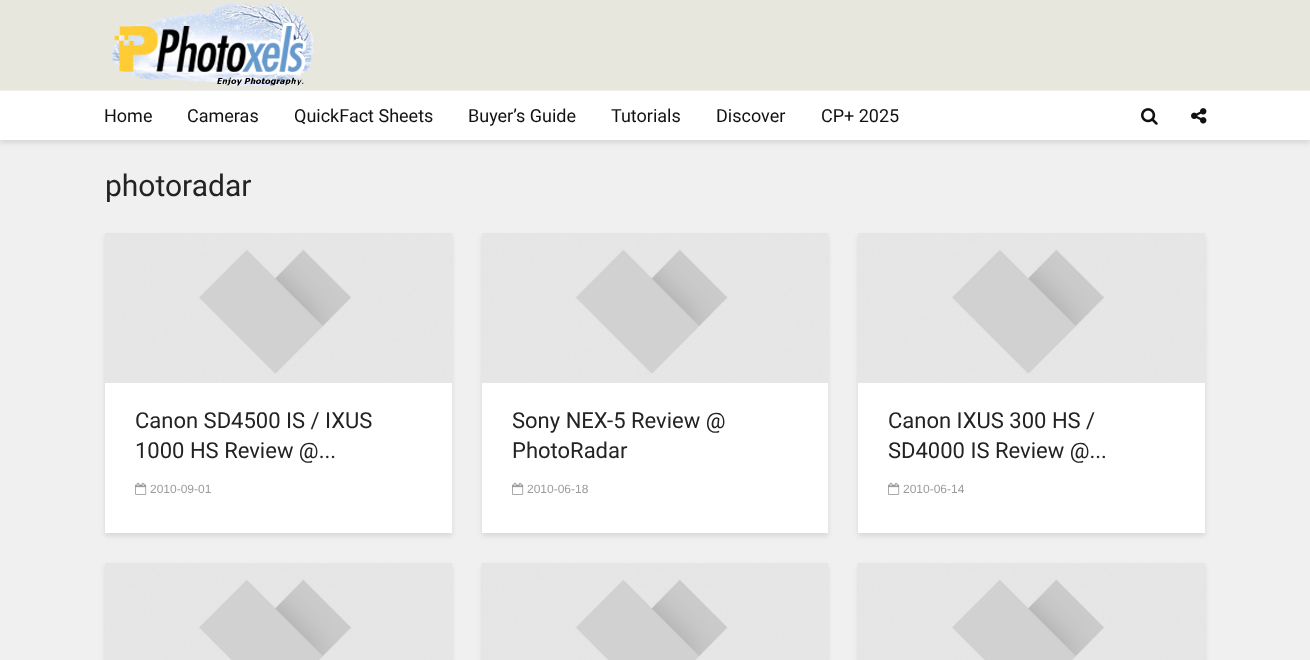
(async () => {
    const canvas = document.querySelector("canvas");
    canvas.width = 1310;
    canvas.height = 660;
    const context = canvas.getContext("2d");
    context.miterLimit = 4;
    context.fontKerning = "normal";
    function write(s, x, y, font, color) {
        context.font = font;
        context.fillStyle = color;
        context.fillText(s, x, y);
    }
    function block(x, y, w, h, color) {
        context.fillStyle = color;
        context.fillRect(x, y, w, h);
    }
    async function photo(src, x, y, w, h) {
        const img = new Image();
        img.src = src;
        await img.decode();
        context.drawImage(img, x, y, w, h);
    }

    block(0, 0, 1310, 660, "rgb(240, 240, 240)");
    context.fillStyle = "rgba(0, 1, 1, 0.1)";
    context.filter = "blur(2.5px)";
    context.beginPath();
    context.rect(0, 3, 1310, 140);
    context.fill();
    context.filter = "none";
    block(0, 0, 1310, 90, "rgb(231, 231, 221)");
    await photo("media/1.png", 111, 3, 203, 83);
    block(0, 91, 1310, 49, "rgb(255, 255, 255)");
    block(0, 90, 1310, 1, "rgb(238, 238, 238)");
    write("Home", 104, 122, "18px Roboto", "rgb(17, 17, 17)");
    write("Cameras", 187, 122, "18px Roboto", "rgb(17, 17, 17)");
    write("QuickFact Sheets", 294, 122, "18px Roboto", "rgb(17, 17, 17)");
    write("Buyer’s Guide", 468, 122, "18px Roboto", "rgb(17, 17, 17)");
    write("Tutorials", 611, 122, "18px Roboto", "rgb(17, 17, 17)");
    write("Discover", 716, 122, "18px Roboto", "rgb(17, 17, 17)");
    write("CP+ 2025", 821, 122, "18px Roboto", "rgb(17, 17, 17)");
    await photo("media/2.png", 1141, 108, 17, 17);
    await photo("media/3.png", 1191, 108, 16, 16);
    write("photoradar", 105, 196, "30px Roboto", "rgb(35, 35, 35)");
    context.fillStyle = "rgba(0, 1, 1, 0.1)";
    context.filter = "blur(2.5px)";
    context.beginPath();
    context.rect(105, 236, 347, 300);
    context.fill();
    context.filter = "none";
    block(105, 383, 347, 150, "rgb(255, 255, 255)");
    await photo("media/4.png", 105, 233, 347, 150);
    write("Canon SD4500 IS / IXUS", 135, 428, "22px Roboto", "rgb(35, 35, 35)");
    write("1000 HS Review @...", 135, 458, "22px Roboto", "rgb(35, 35, 35)");
    await photo("media/5.png", 135, 482, 12, 13);
    write("2010-09-01", 150, 493, "12px Liberation Sans", "rgb(155, 155, 155)");
    context.fillStyle = "rgba(0, 1, 1, 0.1)";
    context.filter = "blur(2.5px)";
    context.beginPath();
    context.rect(482, 236, 346, 300);
    context.fill();
    context.filter = "none";
    block(482, 383, 346, 150, "rgb(255, 255, 255)");
    await photo("media/6.png", 482, 233, 346, 150);
    write("Sony NEX-5 Review @", 512, 428, "22px Roboto", "rgb(35, 35, 35)");
    write("PhotoRadar", 512, 458, "22px Roboto", "rgb(35, 35, 35)");
    await photo("media/5.png", 512, 482, 12, 13);
    write("2010-06-18", 527, 493, "12px Liberation Sans", "rgb(155, 155, 155)");
    context.fillStyle = "rgba(0, 1, 1, 0.1)";
    context.filter = "blur(2.5px)";
    context.beginPath();
    context.rect(858, 236, 347, 300);
    context.fill();
    context.filter = "none";
    block(858, 383, 347, 150, "rgb(255, 255, 255)");
    await photo("media/4.png", 858, 233, 347, 150);
    write("Canon IXUS 300 HS /", 888, 428, "22px Roboto", "rgb(35, 35, 35)");
    write("SD4000 IS Review @...", 888, 458, "22px Roboto", "rgb(35, 35, 35)");
    await photo("media/5.png", 888, 482, 12, 13);
    write("2010-06-14", 903, 493, "12px Liberation Sans", "rgb(155, 155, 155)");
    context.fillStyle = "rgba(0, 1, 1, 0.1)";
    context.filter = "blur(2.5px)";
    context.beginPath();
    context.rect(105, 566, 347, 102);
    context.fill();
    context.filter = "none";
    await photo("media/7.png", 105, 563, 347, 97);
    context.filter = "blur(2.5px)";
    context.beginPath();
    context.rect(482, 566, 346, 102);
    context.fill();
    context.filter = "none";
    await photo("media/8.png", 482, 563, 346, 97);
    context.filter = "blur(2.5px)";
    context.beginPath();
    context.rect(858, 566, 347, 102);
    context.fill();
    context.filter = "none";
    await photo("media/7.png", 858, 563, 347, 97);
})();
